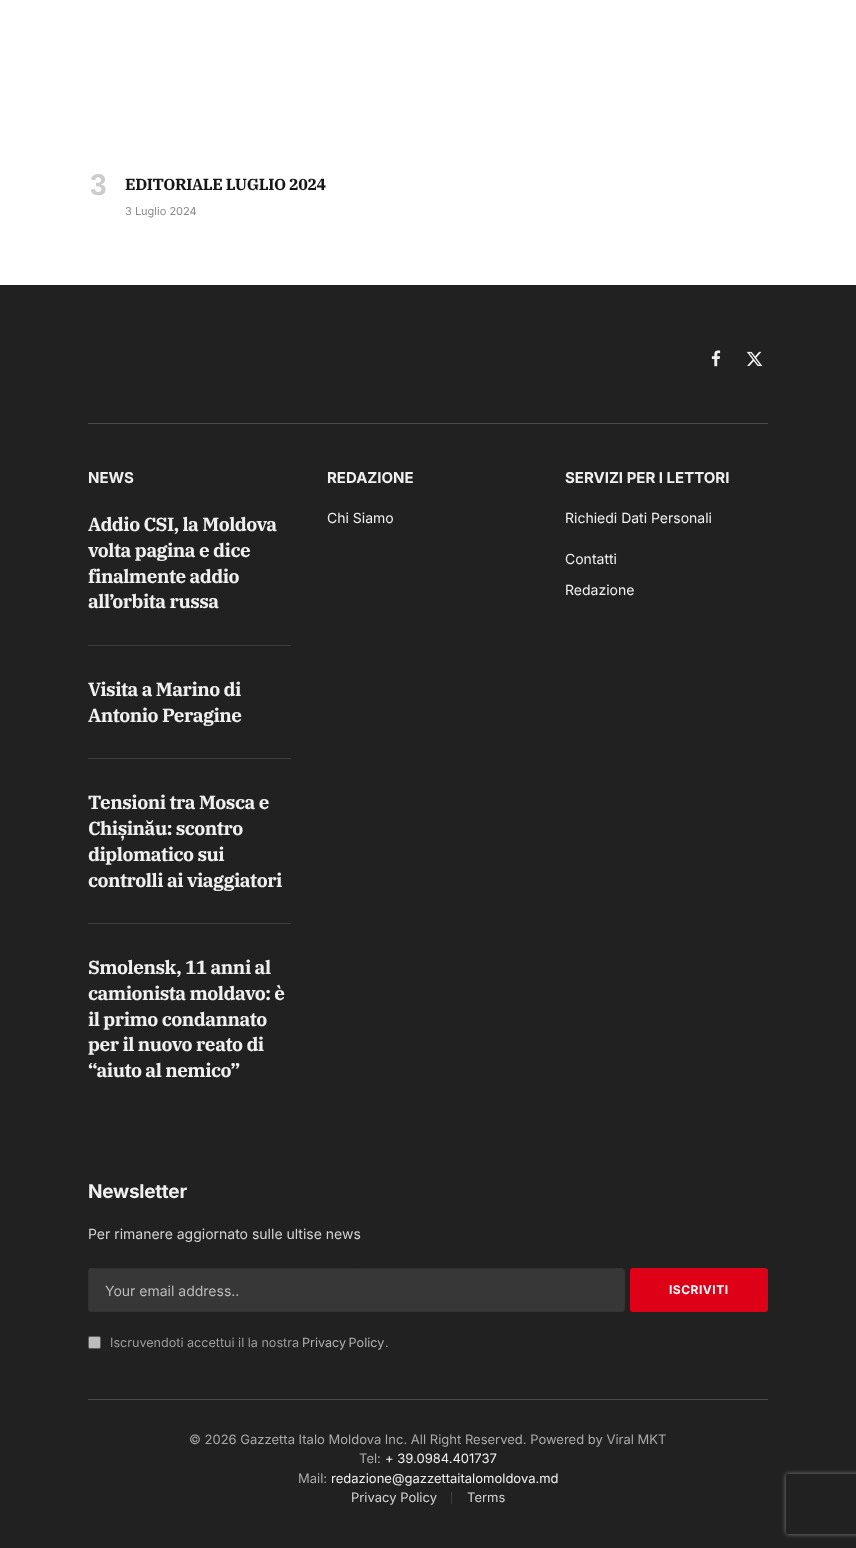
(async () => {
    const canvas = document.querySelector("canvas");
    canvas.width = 856;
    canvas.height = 1548;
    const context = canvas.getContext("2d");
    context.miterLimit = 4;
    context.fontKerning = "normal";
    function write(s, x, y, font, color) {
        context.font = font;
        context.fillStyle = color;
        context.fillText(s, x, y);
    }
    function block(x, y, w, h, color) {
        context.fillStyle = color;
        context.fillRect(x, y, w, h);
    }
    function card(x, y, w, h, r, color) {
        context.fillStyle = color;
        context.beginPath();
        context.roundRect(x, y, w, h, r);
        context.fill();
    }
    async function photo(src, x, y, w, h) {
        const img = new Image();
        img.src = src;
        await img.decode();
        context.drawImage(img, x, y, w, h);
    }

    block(0, 0, 856, 1548, "rgb(255, 255, 255)");
    context.letterSpacing = "-0.4px";
    write("3", 90, 195, "bold 30px Liberation Sans", "rgb(204, 204, 204)");
    write("EDITORIALE LUGLIO 2024", 125, 190, "bold 16px IBM Plex Serif", "rgb(22, 22, 22)");
    context.letterSpacing = "0px";
    write("3 Luglio 2024", 125, 215, "11px Inter", "rgb(138, 138, 138)");
    block(0, 285, 856, 1263, "rgb(33, 33, 33)");
    await photo("media/1.png", 711, 350, 10, 17);
    await photo("media/2.png", 746, 351, 17, 15);
    block(88, 423, 680, 1, "rgb(75, 75, 75)");
    write("NEWS", 88, 483, "bold 15px Inter", "rgb(240, 240, 240)");
    context.letterSpacing = "-0.5px";
    write("Addio CSI, la Moldova", 88, 531, "bold 18.9px IBM Plex Serif", "rgb(240, 240, 240)");
    write("volta pagina e dice", 88, 557, "bold 18.9px IBM Plex Serif", "rgb(240, 240, 240)");
    write("finalmente addio", 88, 583, "bold 18.9px IBM Plex Serif", "rgb(240, 240, 240)");
    write("all’orbita russa", 88, 608, "bold 18.9px IBM Plex Serif", "rgb(240, 240, 240)");
    block(88, 645, 203, 1, "rgb(62, 62, 62)");
    write("Visita a Marino di", 88, 696, "bold 18.9px IBM Plex Serif", "rgb(240, 240, 240)");
    write("Antonio Peragine", 88, 722, "bold 18.9px IBM Plex Serif", "rgb(240, 240, 240)");
    block(88, 758, 203, 1, "rgb(62, 62, 62)");
    write("Tensioni tra Mosca e", 88, 809, "bold 18.9px IBM Plex Serif", "rgb(240, 240, 240)");
    write("Chișinău: scontro", 88, 835, "bold 18.9px IBM Plex Serif", "rgb(240, 240, 240)");
    write("diplomatico sui", 88, 861, "bold 18.9px IBM Plex Serif", "rgb(240, 240, 240)");
    write("controlli ai viaggiatori", 88, 887, "bold 18.9px IBM Plex Serif", "rgb(240, 240, 240)");
    block(88, 923, 203, 1, "rgb(62, 62, 62)");
    write("Smolensk, 11 anni al", 88, 974, "bold 18.9px IBM Plex Serif", "rgb(240, 240, 240)");
    write("camionista moldavo: è", 88, 1000, "bold 18.9px IBM Plex Serif", "rgb(240, 240, 240)");
    write("il primo condannato", 88, 1026, "bold 18.9px IBM Plex Serif", "rgb(240, 240, 240)");
    write("per il nuovo reato di", 88, 1051, "bold 18.9px IBM Plex Serif", "rgb(240, 240, 240)");
    write("“aiuto al nemico”", 88, 1077, "bold 18.9px IBM Plex Serif", "rgb(240, 240, 240)");
    context.letterSpacing = "0px";
    write("REDAZIONE", 327, 483, "bold 15px Inter", "rgb(240, 240, 240)");
    write("Chi Siamo", 327, 523, "14px Inter", "rgb(240, 240, 240)");
    write("SERVIZI PER I LETTORI", 565, 483, "bold 15px Inter", "rgb(240, 240, 240)");
    write("Richiedi Dati Personali", 565, 523, "14px Inter", "rgb(240, 240, 240)");
    write("Contatti", 565, 564, "14px Inter", "rgb(240, 240, 240)");
    write("Redazione", 565, 595, "14px Inter", "rgb(240, 240, 240)");
    context.letterSpacing = "-0.25px";
    write("Newsletter", 88, 1198, "bold 19px Inter", "rgb(240, 240, 240)");
    context.letterSpacing = "0px";
    write("Per rimanere aggiornato sulle ultise news", 88, 1239, "14px Inter", "rgb(211, 211, 211)");
    context.fillStyle = "rgb(55, 55, 55)";
    context.beginPath();
    context.roundRect(88.5, 1268.5, 536, 43, 2.5);
    context.fill();
    context.strokeStyle = "rgb(51, 51, 51)";
    context.stroke();
    write("Your email address..", 105, 1296, "14px Inter", "rgb(187, 187, 187)");
    card(630, 1268, 138, 44, 3, "rgb(221, 0, 23)");
    context.letterSpacing = "0.5px";
    write("ISCRIVITI", 669, 1294, "bold 12px Inter", "rgb(255, 255, 255)");
    context.fillStyle = "rgb(188, 188, 188)";
    context.beginPath();
    context.roundRect(88.5, 1336.5, 12, 12, 1.5);
    context.fill();
    context.strokeStyle = "rgb(93, 93, 93)";
    context.stroke();
    context.letterSpacing = "0px";
    write("Iscruvendoti accettui il la nostra", 110, 1347, "12.6px Inter", "rgb(157, 157, 157)");
    context.wordSpacing = "-1px";
    write("Privacy Policy", 302, 1347, "12.6px Inter", "rgb(178, 178, 178)");
    context.wordSpacing = "0px";
    write(".", 385, 1347, "12.6px Inter", "rgb(157, 157, 157)");
    block(88, 1399, 680, 1, "rgb(75, 75, 75)");
    write("© 2026 Gazzetta Italo Moldova Inc. All Right Reserved. Powered by Viral MKT", 189, 1444, "13px Inter", "rgb(171, 171, 171)");
    write("Tel:", 359, 1463, "13px Inter", "rgb(171, 171, 171)");
    write("+ 39.0984.401737", 385, 1463, "13px Inter", "rgb(240, 240, 240)");
    write("Mail:", 298, 1483, "13px Inter", "rgb(171, 171, 171)");
    write("redazione@gazzettaitalomoldova.md", 331, 1483, "13px Inter", "rgb(240, 240, 240)");
    write("Privacy Policy", 351, 1502, "13px Inter", "rgb(211, 211, 211)");
    block(451, 1492, 1, 12, "rgb(62, 62, 62)");
    write("Terms", 467, 1502, "13px Inter", "rgb(211, 211, 211)");
    context.save();
    context.beginPath();
    context.moveTo(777, 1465);
    context.lineTo(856, 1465);
    context.lineTo(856, 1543);
    context.lineTo(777, 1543);
    context.closePath();
    context.moveTo(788, 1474);
    context.lineTo(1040, 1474);
    context.bezierCurveTo(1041, 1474, 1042, 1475, 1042, 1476);
    context.lineTo(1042, 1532);
    context.bezierCurveTo(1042, 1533, 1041, 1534, 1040, 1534);
    context.lineTo(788, 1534);
    context.bezierCurveTo(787, 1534, 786, 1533, 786, 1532);
    context.lineTo(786, 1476);
    context.bezierCurveTo(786, 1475, 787, 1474, 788, 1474);
    context.closePath();
    context.clip("evenodd");
    context.fillStyle = "rgb(128, 128, 128)";
    context.filter = "blur(2.5px)";
    context.beginPath();
    context.roundRect(786, 1474, 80, 60, 2);
    context.fill();
    context.filter = "none";
    context.restore();
})();
